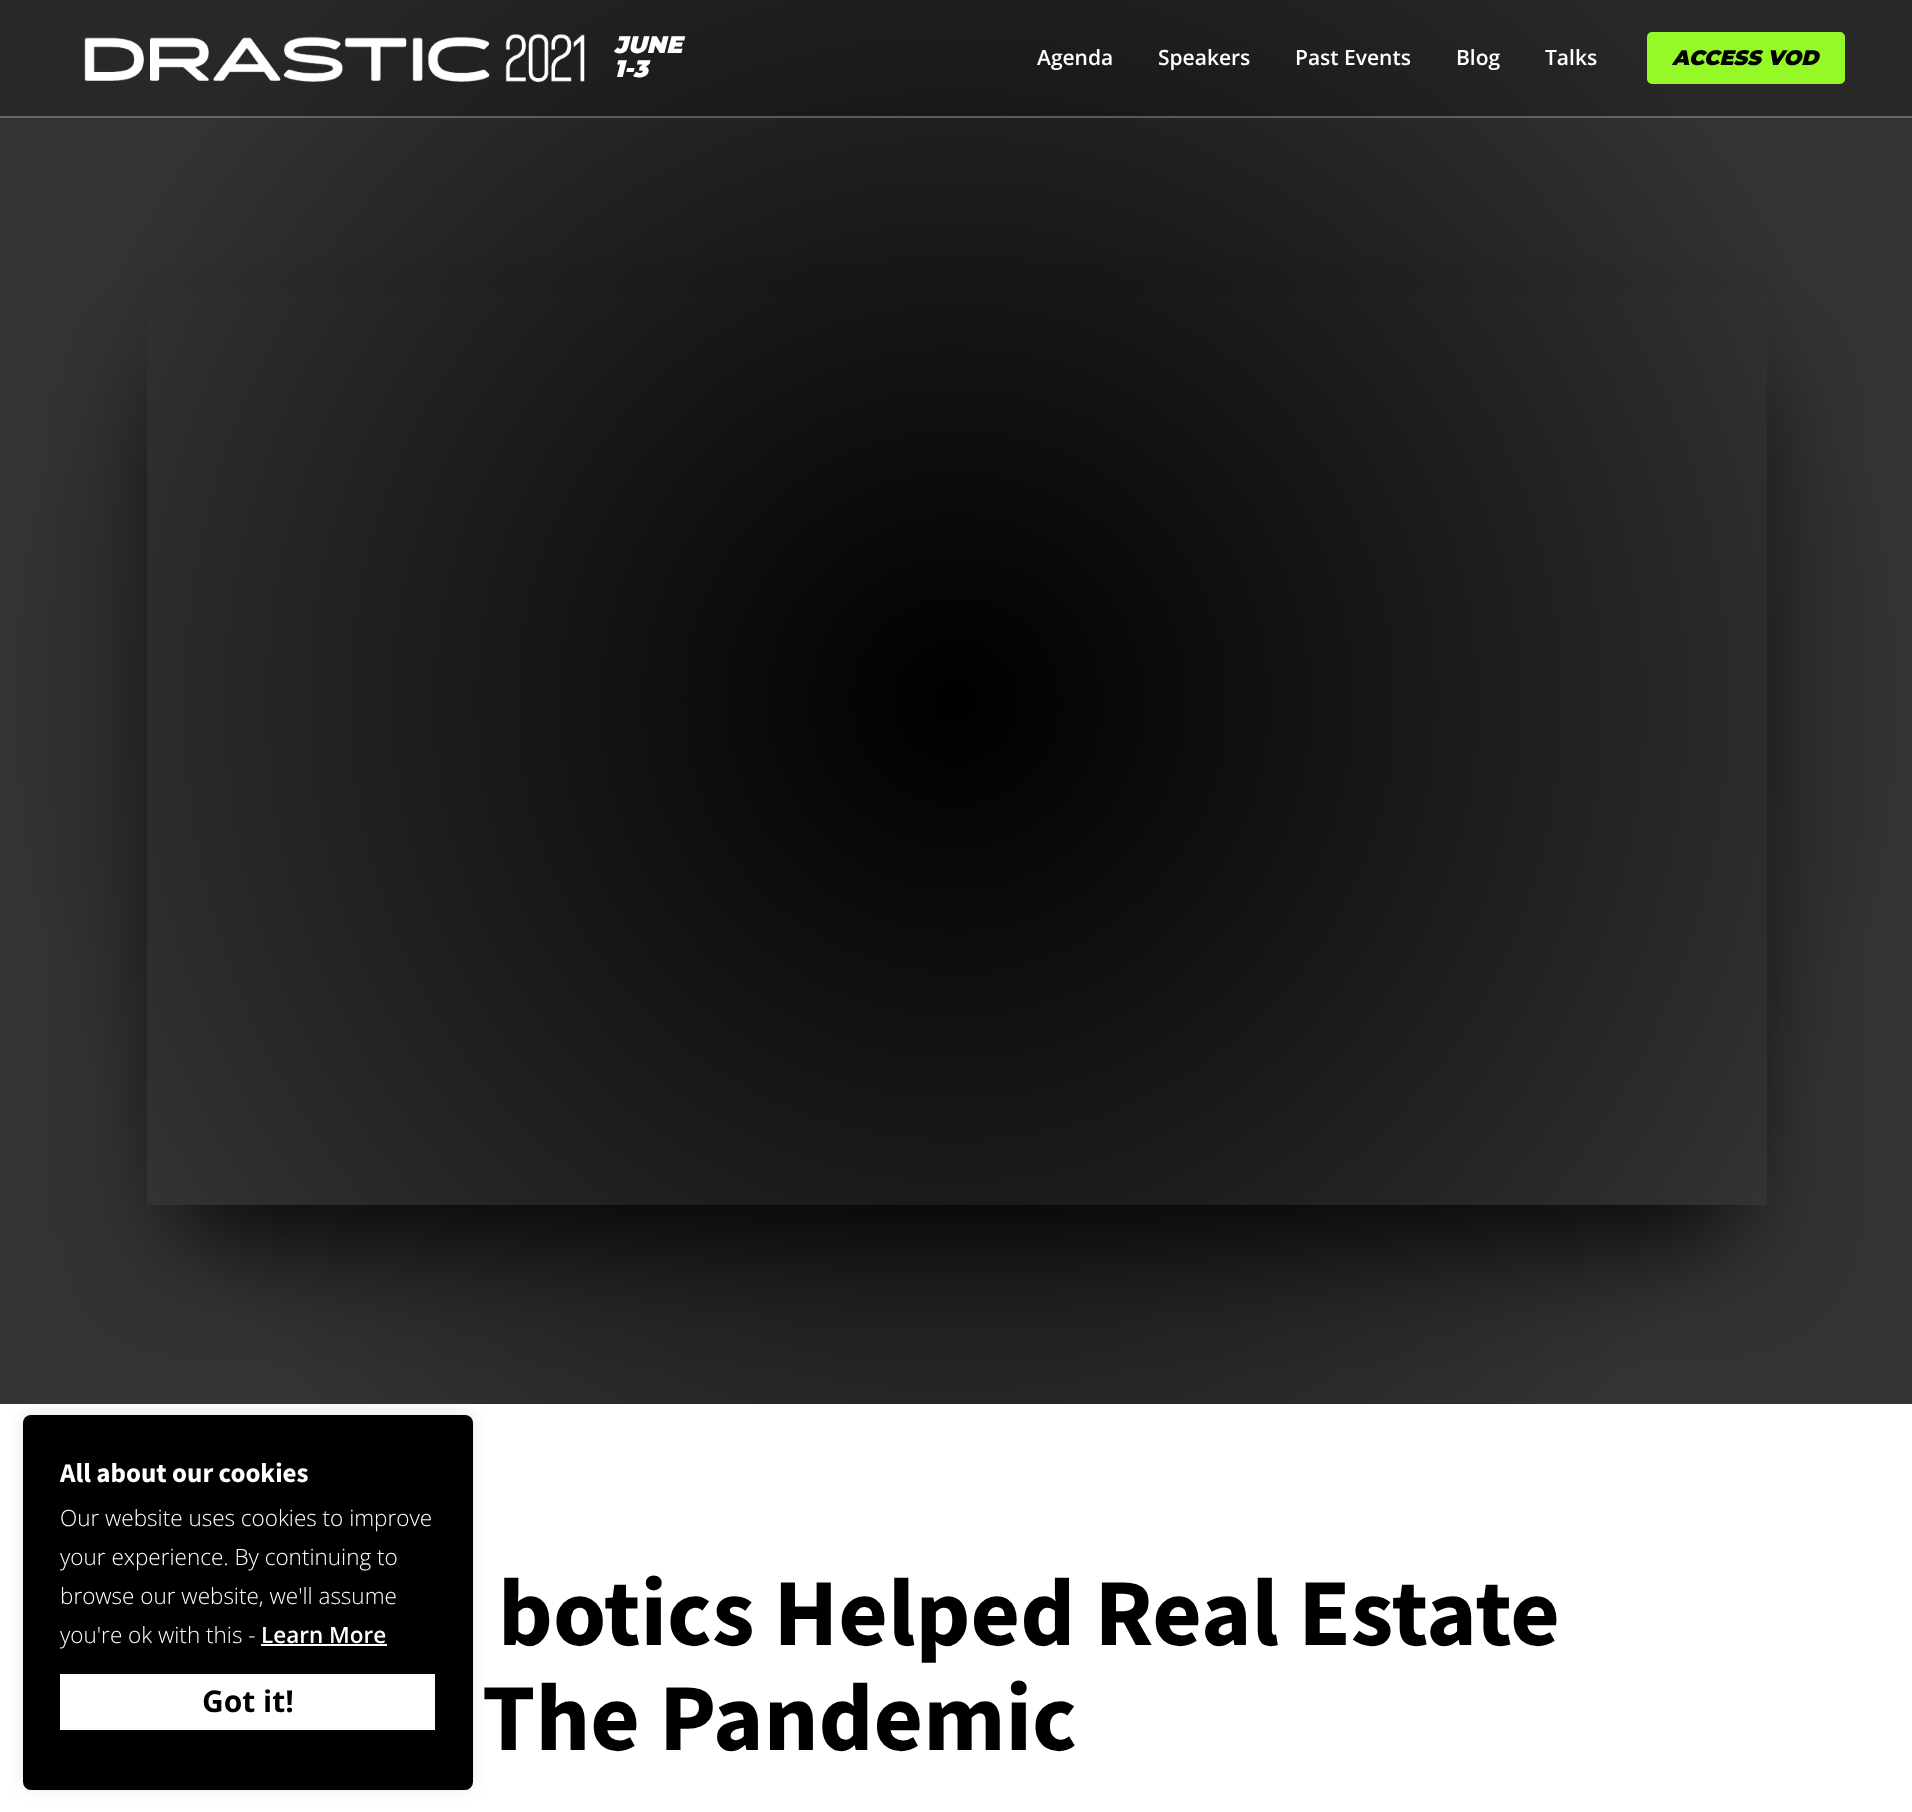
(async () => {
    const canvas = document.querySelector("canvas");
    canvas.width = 1912;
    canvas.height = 1812;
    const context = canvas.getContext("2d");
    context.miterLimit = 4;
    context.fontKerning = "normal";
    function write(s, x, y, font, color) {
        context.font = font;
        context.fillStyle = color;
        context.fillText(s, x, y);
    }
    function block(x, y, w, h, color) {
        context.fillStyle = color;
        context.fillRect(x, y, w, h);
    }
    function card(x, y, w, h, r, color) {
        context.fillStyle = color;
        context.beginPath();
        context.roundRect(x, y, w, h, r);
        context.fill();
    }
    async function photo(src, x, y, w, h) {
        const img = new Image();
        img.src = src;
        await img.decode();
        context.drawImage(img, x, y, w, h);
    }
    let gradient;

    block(0, 0, 1912, 1812, "rgb(255, 255, 255)");
    gradient = context.createRadialGradient(956, 702, 0, 956, 702, 1186);
    gradient.addColorStop(0, "rgb(0, 0, 0)");
    gradient.addColorStop(0.8, "rgb(51, 51, 51)");
    context.fillStyle = gradient;
    context.fillRect(0, 118, 1912, 1286);
    gradient = context.createRadialGradient(956, 702, 0, 956, 702, 1186);
    gradient.addColorStop(0, "rgb(69, 69, 69)");
    gradient.addColorStop(0.8, "rgb(106, 106, 106)");
    context.fillStyle = gradient;
    context.fillRect(0, 117, 1912, 1);
    gradient = context.createRadialGradient(956, 702, 0, 956, 702, 1186);
    gradient.addColorStop(0, "rgb(0, 0, 0)");
    gradient.addColorStop(0.8, "rgb(40, 40, 40)");
    context.fillStyle = gradient;
    context.fillRect(0, 0, 1912, 116);
    gradient = context.createRadialGradient(956, 702, 0, 956, 702, 1186);
    gradient.addColorStop(0, "rgb(69, 69, 69)");
    gradient.addColorStop(0.8, "rgb(98, 98, 98)");
    context.fillStyle = gradient;
    context.fillRect(0, 116, 1912, 1);
    context.save();
    context.beginPath();
    context.moveTo(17, 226);
    context.lineTo(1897, 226);
    context.lineTo(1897, 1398);
    context.lineTo(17, 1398);
    context.closePath();
    context.moveTo(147, 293);
    context.lineTo(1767, 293);
    context.lineTo(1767, 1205);
    context.lineTo(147, 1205);
    context.closePath();
    context.clip("evenodd");
    context.fillStyle = "rgba(0, 0, 0, 0.79)";
    context.filter = "blur(53px)";
    context.beginPath();
    context.rect(177, 386, 1560, 852);
    context.fill();
    context.filter = "none";
    context.restore();
    await photo("media/1.png", 84, 33, 501, 50);
    write("JUNE", 614, 53, "italic 900 24px Montserrat", "rgb(255, 255, 255)");
    write("1-3", 614, 77, "italic 900 24px Montserrat", "rgb(255, 255, 255)");
    write("Agenda", 1037, 65, "600 21px Open Sans", "rgb(255, 255, 255)");
    write("Speakers", 1158, 65, "600 21px Open Sans", "rgb(255, 255, 255)");
    write("Past Events", 1295, 65, "600 21px Open Sans", "rgb(255, 255, 255)");
    write("Blog", 1456, 65, "600 21px Open Sans", "rgb(255, 255, 255)");
    write("Talks", 1545, 65, "600 21px Open Sans", "rgb(255, 255, 255)");
    context.fillStyle = "rgb(149, 248, 39)";
    context.beginPath();
    context.roundRect(1648, 33, 196, 50, 4);
    context.fill();
    context.strokeStyle = "rgb(149, 248, 39)";
    context.lineWidth = 2;
    context.stroke();
    write("ACCESS VOD", 1672, 65, "italic 900 21px Montserrat", "rgb(0, 0, 0)");
    context.fillStyle = "rgba(172, 171, 171, 0.3)";
    context.filter = "blur(7.5px)";
    context.beginPath();
    context.roundRect(23, 1413, 450, 375, 8);
    context.fill();
    context.filter = "none";
    card(23, 1415, 450, 375, 8, "rgb(0, 0, 0)");
    write("All about our cookies", 60, 1482, "bold 27px Source Sans Pro", "rgb(255, 255, 255)");
    write("Our website uses cookies to improve", 60, 1526, "300 22.5px Open Sans", "rgb(255, 255, 255)");
    write("your experience. By continuing to", 60, 1565, "300 22.5px Open Sans", "rgb(255, 255, 255)");
    write("browse our website, we'll assume", 60, 1604, "300 22.5px Open Sans", "rgb(255, 255, 255)");
    write("you're ok with this -", 60, 1643, "300 22.5px Open Sans", "rgb(255, 255, 255)");
    write("Learn More", 261, 1643, "600 22.5px Open Sans", "rgb(255, 255, 255)");
    block(261, 1644, 126, 2, "rgb(255, 255, 255)");
    block(60, 1674, 375, 56, "rgb(255, 255, 255)");
    write("Got it!", 202, 1712, "bold 30px Open Sans", "rgb(0, 0, 0)");
    write("botics Helped Real Estate", 498, 1645, "bold 96px Source Sans Pro", "rgb(0, 0, 0)");
    write("The Pandemic", 482, 1750, "bold 96px Source Sans Pro", "rgb(0, 0, 0)");
})();
